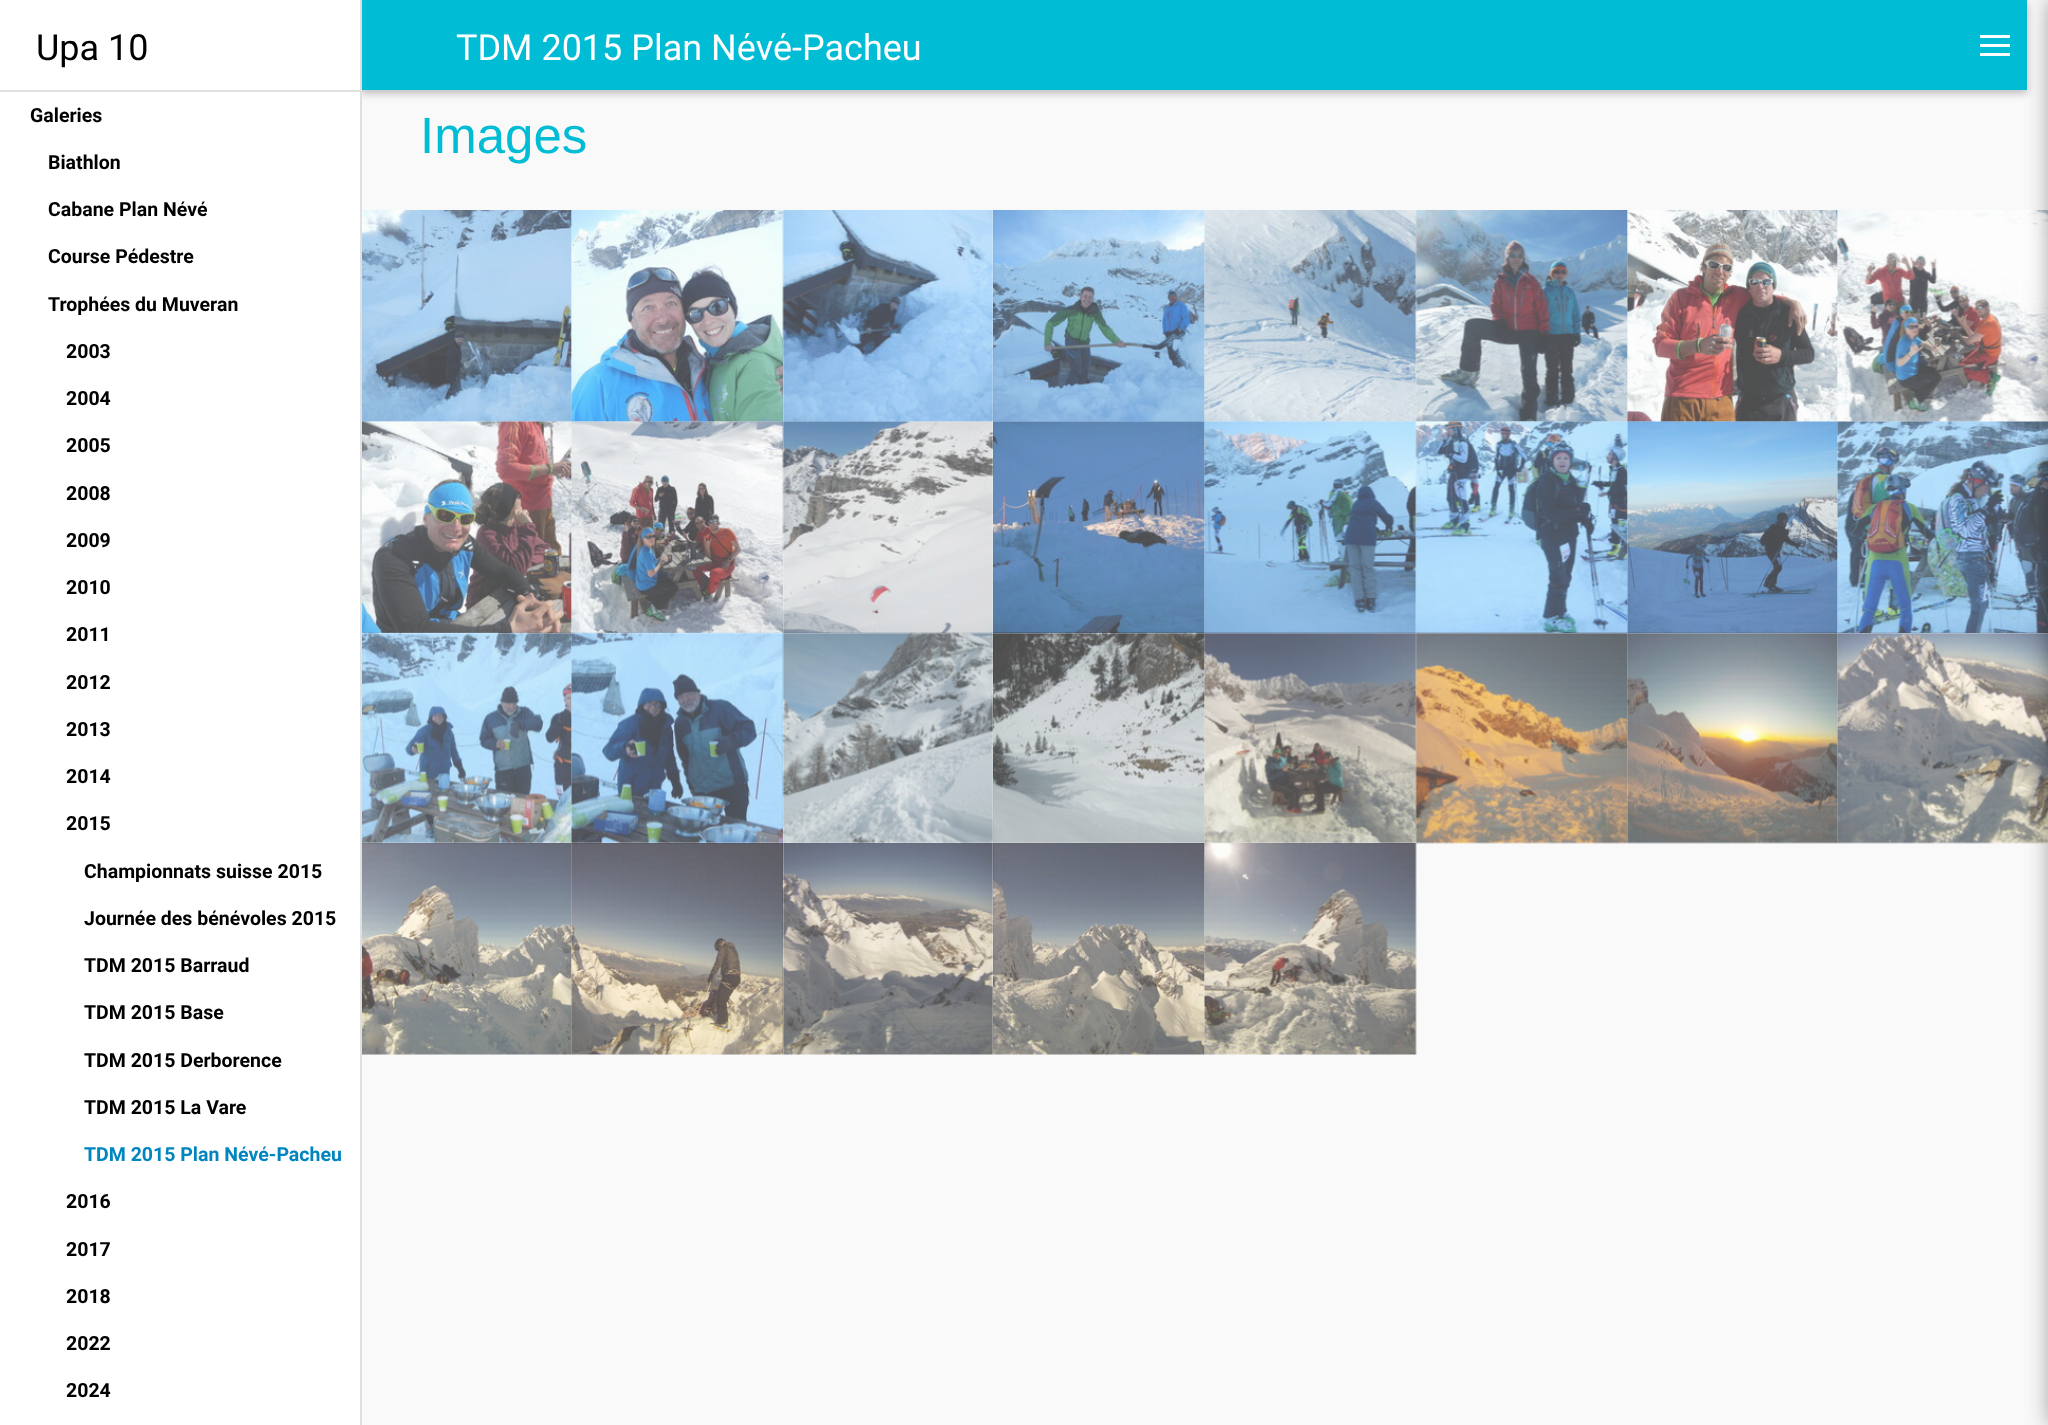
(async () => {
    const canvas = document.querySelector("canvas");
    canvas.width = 2048;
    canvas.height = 1425;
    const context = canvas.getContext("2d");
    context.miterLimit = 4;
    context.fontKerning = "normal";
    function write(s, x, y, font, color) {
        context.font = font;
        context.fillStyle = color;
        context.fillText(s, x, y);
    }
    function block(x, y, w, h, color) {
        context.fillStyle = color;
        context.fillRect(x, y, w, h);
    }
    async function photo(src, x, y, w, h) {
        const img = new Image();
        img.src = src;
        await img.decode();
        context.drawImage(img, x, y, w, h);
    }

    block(0, 0, 2048, 1425, "rgb(249, 249, 249)");
    context.fillStyle = "rgba(0, 0, 0, 0.26)";
    context.filter = "blur(4px)";
    context.beginPath();
    context.rect(360, 3, 1667, 90);
    context.fill();
    context.filter = "none";
    block(0, 0, 360, 1425, "rgb(255, 255, 255)");
    block(360, 0, 2, 1425, "rgb(224, 224, 224)");
    block(0, 90, 360, 2, "rgb(224, 224, 224)");
    write("Upa 10", 36, 60, "36px Roboto", "rgb(0, 0, 0)");
    write("Galeries", 30, 122, "bold 19.5px Roboto", "rgb(0, 0, 0)");
    write("Biathlon", 48, 169, "bold 19.5px Roboto", "rgb(0, 0, 0)");
    write("Cabane Plan Névé", 48, 216, "bold 19.5px Roboto", "rgb(0, 0, 0)");
    write("Course Pédestre", 48, 263, "bold 19.5px Roboto", "rgb(0, 0, 0)");
    write("Trophées du Muveran", 48, 311, "bold 19.5px Roboto", "rgb(0, 0, 0)");
    write("2003", 66, 358, "bold 19.5px Roboto", "rgb(0, 0, 0)");
    write("2004", 66, 405, "bold 19.5px Roboto", "rgb(0, 0, 0)");
    write("2005", 66, 452, "bold 19.5px Roboto", "rgb(0, 0, 0)");
    write("2008", 66, 500, "bold 19.5px Roboto", "rgb(0, 0, 0)");
    write("2009", 66, 547, "bold 19.5px Roboto", "rgb(0, 0, 0)");
    write("2010", 66, 594, "bold 19.5px Roboto", "rgb(0, 0, 0)");
    write("2011", 66, 641, "bold 19.5px Roboto", "rgb(0, 0, 0)");
    write("2012", 66, 689, "bold 19.5px Roboto", "rgb(0, 0, 0)");
    write("2013", 66, 736, "bold 19.5px Roboto", "rgb(0, 0, 0)");
    write("2014", 66, 783, "bold 19.5px Roboto", "rgb(0, 0, 0)");
    write("2015", 66, 830, "bold 19.5px Roboto", "rgb(0, 0, 0)");
    write("Championnats suisse 2015", 84, 878, "bold 19.5px Roboto", "rgb(0, 0, 0)");
    write("Journée des bénévoles 2015", 84, 925, "bold 19.5px Roboto", "rgb(0, 0, 0)");
    write("TDM 2015 Barraud", 84, 972, "bold 19.5px Roboto", "rgb(0, 0, 0)");
    write("TDM 2015 Base", 84, 1019, "bold 19.5px Roboto", "rgb(0, 0, 0)");
    write("TDM 2015 Derborence", 84, 1067, "bold 19.5px Roboto", "rgb(0, 0, 0)");
    write("TDM 2015 La Vare", 84, 1114, "bold 19.5px Roboto", "rgb(0, 0, 0)");
    write("TDM 2015 Plan Névé-Pacheu", 84, 1161, "bold 19.5px Roboto", "rgb(0, 133, 190)");
    write("2016", 66, 1208, "bold 19.5px Roboto", "rgb(0, 0, 0)");
    write("2017", 66, 1256, "bold 19.5px Roboto", "rgb(0, 0, 0)");
    write("2018", 66, 1303, "bold 19.5px Roboto", "rgb(0, 0, 0)");
    write("2022", 66, 1350, "bold 19.5px Roboto", "rgb(0, 0, 0)");
    write("2024", 66, 1397, "bold 19.5px Roboto", "rgb(0, 0, 0)");
    block(362, 0, 1665, 90, "rgb(0, 188, 212)");
    write("TDM 2015 Plan Névé-Pacheu", 456, 60, "36px Roboto", "rgb(255, 255, 255)");
    write("Images", 420, 153, "51px Liberation Sans", "rgb(0, 188, 212)");
    await photo("media/1.png", 362, 210, 210, 212);
    await photo("media/2.png", 571, 210, 212, 212);
    await photo("media/3.png", 782, 210, 212, 212);
    await photo("media/4.png", 993, 210, 212, 212);
    await photo("media/5.png", 1204, 210, 213, 212);
    await photo("media/6.png", 1415, 210, 213, 212);
    await photo("media/7.png", 1627, 210, 211, 212);
    await photo("media/8.png", 1837, 210, 211, 212);
    await photo("media/9.png", 362, 421, 210, 212);
    await photo("media/10.png", 571, 421, 212, 212);
    await photo("media/11.png", 782, 421, 212, 212);
    await photo("media/12.png", 993, 421, 212, 212);
    await photo("media/13.png", 1204, 421, 213, 212);
    await photo("media/14.png", 1415, 421, 213, 212);
    await photo("media/15.png", 1627, 421, 211, 212);
    await photo("media/16.png", 1837, 421, 211, 212);
    await photo("media/17.png", 362, 632, 210, 212);
    await photo("media/18.png", 571, 632, 212, 212);
    await photo("media/19.png", 782, 632, 212, 212);
    await photo("media/20.png", 993, 632, 212, 212);
    await photo("media/21.png", 1204, 632, 213, 212);
    await photo("media/22.png", 1415, 632, 213, 212);
    await photo("media/23.png", 1627, 632, 211, 212);
    await photo("media/24.png", 1837, 632, 211, 212);
    await photo("media/25.png", 362, 843, 210, 212);
    await photo("media/26.png", 571, 843, 212, 212);
    await photo("media/27.png", 782, 843, 212, 212);
    await photo("media/28.png", 993, 843, 212, 212);
    await photo("media/29.png", 1204, 843, 213, 212);
    block(1980, 44, 30, 3, "rgb(255, 255, 255)");
    block(1980, 35, 30, 3, "rgb(255, 255, 255)");
    block(1980, 53, 30, 3, "rgb(255, 255, 255)");
    context.fillStyle = "rgba(0, 0, 0, 0.36)";
    context.filter = "blur(11px)";
    context.beginPath();
    context.rect(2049, 0, 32, 1425);
    context.fill();
    context.filter = "none";
})();
